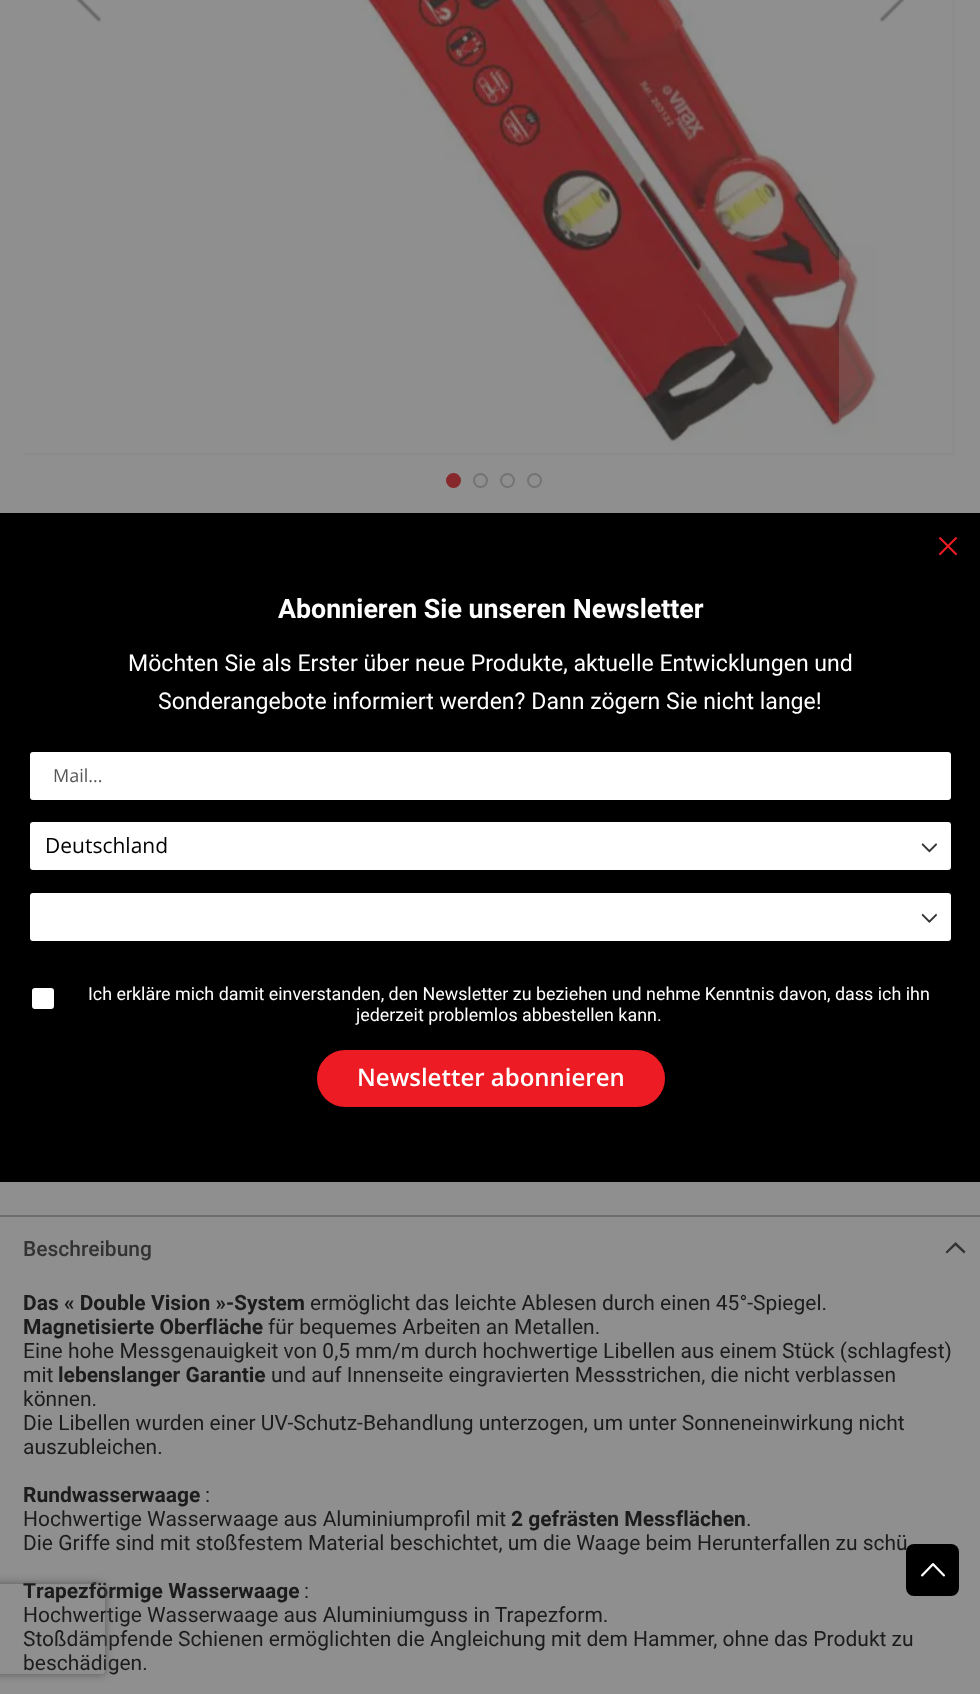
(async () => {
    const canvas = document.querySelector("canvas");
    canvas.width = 980;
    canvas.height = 1694;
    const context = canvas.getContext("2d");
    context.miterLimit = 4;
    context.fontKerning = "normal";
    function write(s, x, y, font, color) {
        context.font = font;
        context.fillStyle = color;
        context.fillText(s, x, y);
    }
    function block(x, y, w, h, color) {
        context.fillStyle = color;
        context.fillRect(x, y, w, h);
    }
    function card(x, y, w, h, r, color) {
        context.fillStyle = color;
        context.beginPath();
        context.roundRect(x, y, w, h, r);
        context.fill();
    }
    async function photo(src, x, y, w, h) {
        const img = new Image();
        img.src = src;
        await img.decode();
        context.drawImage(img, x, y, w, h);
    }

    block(0, 0, 980, 1694, "rgb(143, 143, 143)");
    block(0, 513, 980, 669, "rgb(0, 0, 0)");
    await photo("media/1.png", 938, 536, 20, 20);
    write("Abonnieren Sie unseren Newsletter", 278, 618, "bold 26.8px Roboto", "rgb(255, 255, 255)");
    write("Möchten Sie als Erster über neue Produkte, aktuelle Entwicklungen und", 128, 671, "23.1px Roboto", "rgb(255, 255, 255)");
    write("Sonderangebote informiert werden? Dann zögern Sie nicht lange!", 158, 709, "23.1px Roboto", "rgb(255, 255, 255)");
    card(30, 752, 921, 48, 3, "rgb(255, 255, 255)");
    write("Mail...", 53, 782, "18px Open Sans", "rgb(87, 87, 87)");
    card(30, 822, 921, 48, 3, "rgb(255, 255, 255)");
    await photo("media/2.png", 921, 843, 17, 10);
    write("Deutschland", 45, 853, "21px Open Sans", "rgb(0, 0, 0)");
    card(30, 893, 921, 48, 3, "rgb(255, 255, 255)");
    await photo("media/3.png", 921, 913, 17, 10);
    context.beginPath();
    context.roundRect(31, 987, 24, 23, 4);
    context.fill();
    context.strokeStyle = "rgb(0, 0, 0)";
    context.lineWidth = 2;
    context.stroke();
    write("Ich erkläre mich damit einverstanden, den Newsletter zu beziehen und nehme Kenntnis davon, dass ich ihn", 88, 1000, "17.9px Roboto", "rgb(255, 255, 255)");
    write("jederzeit problemlos abbestellen kann.", 356, 1021, "17.9px Roboto", "rgb(255, 255, 255)");
    context.fillStyle = "rgb(237, 28, 36)";
    context.beginPath();
    context.roundRect(318.5, 1051.5, 345, 54, 27);
    context.fill();
    context.strokeStyle = "rgb(237, 28, 36)";
    context.lineWidth = 3;
    context.stroke();
    write("Newsletter abonnieren", 357, 1086, "600 24px Open Sans", "rgb(255, 255, 255)");
    context.save();
    context.beginPath();
    context.rect(23, 0, 936, 455);
    context.clip();
    context.strokeStyle = "rgb(139, 139, 139)";
    context.lineWidth = 2;
    context.strokeRect(19, -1, 934, 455);
    context.restore();
    await photo("media/4.png", 360, 0, 593, 452);
    await photo("media/5.png", 76, 0, 26, 22);
    block(839, 246, 38, 179, "rgba(143, 143, 143, 0.3)");
    await photo("media/6.png", 879, 0, 26, 22);
    context.fillStyle = "rgb(135, 41, 44)";
    context.beginPath();
    context.arc(453.5, 480.5, 6.5, 0, Math.PI * 2);
    context.fill();
    context.strokeStyle = "rgb(135, 41, 44)";
    context.lineWidth = 2;
    context.stroke();
    context.beginPath();
    context.arc(480.5, 480.5, 6.5, 0, Math.PI * 2);
    context.strokeStyle = "rgb(115, 115, 115)";
    context.stroke();
    context.beginPath();
    context.arc(507.5, 480.5, 6.5, 0, Math.PI * 2);
    context.stroke();
    context.beginPath();
    context.arc(534.5, 480.5, 6.5, 0, Math.PI * 2);
    context.stroke();
    block(0, 1215, 980, 2, "rgb(109, 109, 109)");
    write("Beschreibung", 23, 1256, "500 21px Roboto", "rgb(51, 51, 51)");
    context.beginPath();
    context.moveTo(955.5, 1245.5);
    context.lineTo(964, 1253.5);
    context.lineTo(965.5, 1251.5);
    context.lineTo(955.5, 1242);
    context.lineTo(945.5, 1252);
    context.lineTo(947, 1253.5);
    context.closePath();
    context.fill();
    write("Das « Double Vision »-System", 23, 1310, "bold 21px Roboto", "rgb(28, 28, 28)");
    write("ermöglicht das leichte Ablesen durch einen 45°-Spiegel.", 310, 1310, "21px Roboto", "rgb(28, 28, 28)");
    write("Magnetisierte Oberfläche", 23, 1334, "bold 21px Roboto", "rgb(28, 28, 28)");
    write("für bequemes Arbeiten an Metallen.", 268, 1334, "21px Roboto", "rgb(28, 28, 28)");
    write("Eine hohe Messgenauigkeit von 0,5 mm/m durch hochwertige Libellen aus einem Stück (schlagfest)", 23, 1358, "21px Roboto", "rgb(28, 28, 28)");
    write("mit", 23, 1382, "21px Roboto", "rgb(28, 28, 28)");
    write("lebenslanger Garantie", 58, 1382, "bold 21px Roboto", "rgb(28, 28, 28)");
    write("und auf Innenseite eingravierten Messstrichen, die nicht verblassen", 271, 1382, "21px Roboto", "rgb(28, 28, 28)");
    write("können.", 23, 1406, "21px Roboto", "rgb(28, 28, 28)");
    write("Die Libellen wurden einer UV-Schutz-Behandlung unterzogen, um unter Sonneneinwirkung nicht", 23, 1430, "21px Roboto", "rgb(28, 28, 28)");
    write("auszubleichen.", 23, 1454, "21px Roboto", "rgb(28, 28, 28)");
    write("Rundwasserwaage", 23, 1502, "bold 21px Roboto", "rgb(28, 28, 28)");
    write(":", 205, 1502, "21px Roboto", "rgb(28, 28, 28)");
    write("Hochwertige Wasserwaage aus Aluminiumprofil mit", 23, 1526, "21px Roboto", "rgb(28, 28, 28)");
    write("2 gefrästen Messflächen", 511, 1526, "bold 21px Roboto", "rgb(28, 28, 28)");
    write(".", 746, 1526, "21px Roboto", "rgb(28, 28, 28)");
    write("Die Griffe sind mit stoßfestem Material beschichtet, um die Waage beim Herunterfallen zu schü", 23, 1550, "21px Roboto", "rgb(28, 28, 28)");
    write("Trapezförmige Wasserwaage", 23, 1598, "bold 21px Roboto", "rgb(28, 28, 28)");
    write(":", 304, 1598, "21px Roboto", "rgb(28, 28, 28)");
    write("Hochwertige Wasserwaage aus Aluminiumguss in Trapezform.", 23, 1622, "21px Roboto", "rgb(28, 28, 28)");
    write("Stoßdämpfende Schienen ermöglichten die Angleichung mit dem Hammer, ohne das Produkt zu", 23, 1646, "21px Roboto", "rgb(28, 28, 28)");
    write("beschädigen.", 23, 1670, "21px Roboto", "rgb(28, 28, 28)");
    card(906, 1544, 53, 52, 8, "rgb(0, 0, 0)");
    await photo("media/7.png", 921, 1563, 24, 14);
    context.save();
    context.beginPath();
    context.moveTo(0, 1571);
    context.lineTo(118, 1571);
    context.lineTo(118, 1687);
    context.lineTo(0, 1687);
    context.closePath();
    context.moveTo(-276, 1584);
    context.lineTo(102, 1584);
    context.bezierCurveTo(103.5, 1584, 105, 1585.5, 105, 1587);
    context.lineTo(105, 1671);
    context.bezierCurveTo(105, 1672.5, 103.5, 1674, 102, 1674);
    context.lineTo(-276, 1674);
    context.bezierCurveTo(-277.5, 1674, -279, 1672.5, -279, 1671);
    context.lineTo(-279, 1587);
    context.bezierCurveTo(-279, 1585.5, -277.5, 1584, -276, 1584);
    context.closePath();
    context.clip("evenodd");
    context.fillStyle = "rgb(86, 86, 86)";
    context.filter = "blur(4px)";
    context.beginPath();
    context.roundRect(-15, 1584, 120, 90, 3);
    context.fill();
    context.filter = "none";
    context.restore();
})();
